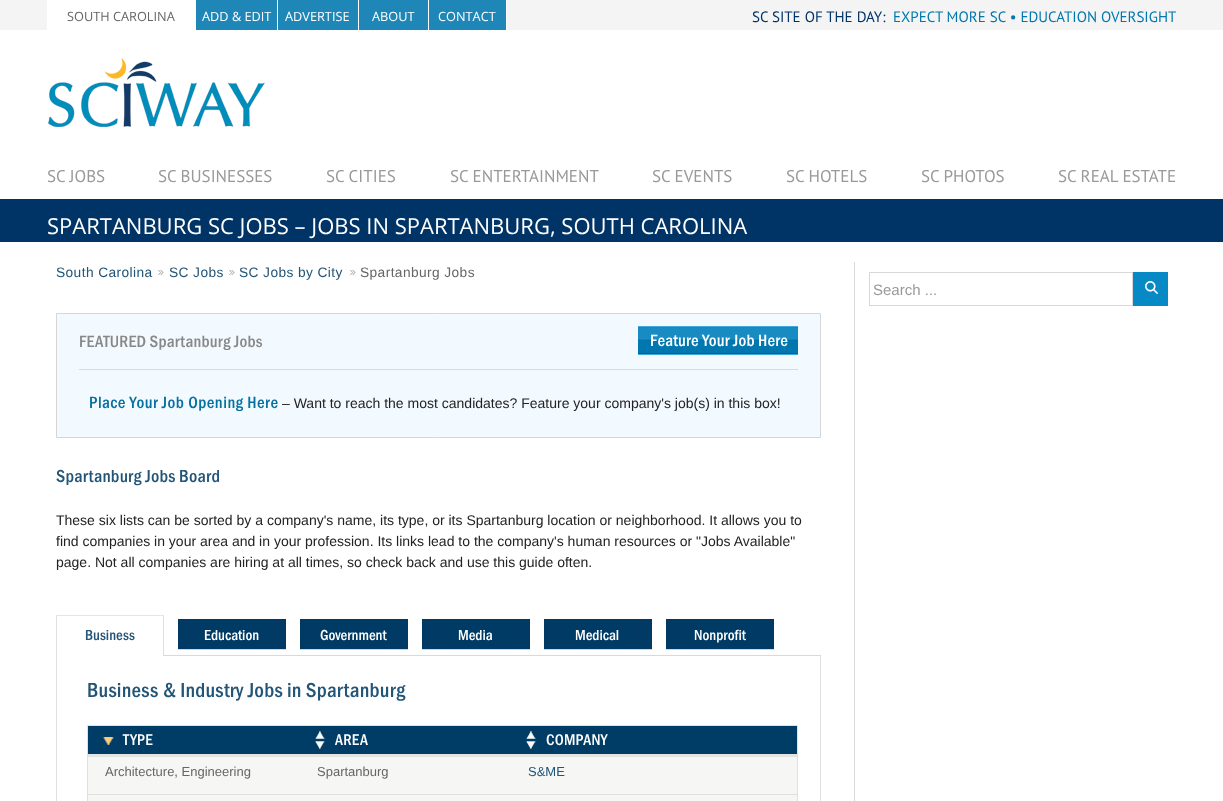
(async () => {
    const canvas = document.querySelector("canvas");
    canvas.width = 1223;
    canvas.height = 801;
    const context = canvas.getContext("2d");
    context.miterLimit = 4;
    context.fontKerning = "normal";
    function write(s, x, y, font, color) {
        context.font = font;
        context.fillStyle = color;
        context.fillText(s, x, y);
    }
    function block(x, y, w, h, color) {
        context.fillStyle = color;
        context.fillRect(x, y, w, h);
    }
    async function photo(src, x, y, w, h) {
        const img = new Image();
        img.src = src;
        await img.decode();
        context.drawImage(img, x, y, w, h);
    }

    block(0, 0, 1223, 801, "rgb(255, 255, 255)");
    block(0, 0, 1223, 30, "rgb(244, 244, 244)");
    block(47, 0, 149, 30, "rgb(255, 255, 255)");
    write("SOUTH CAROLINA", 67, 21, "12.75px Open Sans", "rgb(102, 102, 102)");
    block(196, 0, 81, 30, "rgb(31, 135, 183)");
    block(277, 0, 1, 32, "rgb(255, 255, 255)");
    write("ADD & EDIT", 202, 21, "12.75px Open Sans", "rgb(255, 255, 255)");
    block(278, 0, 80, 30, "rgb(31, 135, 183)");
    block(358, 0, 1, 32, "rgb(255, 255, 255)");
    write("ADVERTISE", 285, 21, "12.75px Open Sans", "rgb(255, 255, 255)");
    block(359, 0, 69, 30, "rgb(31, 135, 183)");
    block(428, 0, 1, 32, "rgb(255, 255, 255)");
    write("ABOUT", 372, 21, "12.75px Open Sans", "rgb(255, 255, 255)");
    block(429, 0, 77, 30, "rgb(31, 135, 183)");
    block(506, 0, 1, 32, "rgb(255, 255, 255)");
    write("CONTACT", 438, 21, "12.75px Open Sans", "rgb(255, 255, 255)");
    write("SC SITE OF THE DAY:", 752, 22, "15px PT Sans", "rgb(0, 51, 102)");
    write("EXPECT MORE SC • EDUCATION OVERSIGHT", 893, 22, "15px PT Sans", "rgb(0, 120, 173)");
    await photo("media/1.png", 48, 58, 217, 69);
    write("SC JOBS", 47, 182, "17px PT Sans", "rgb(153, 153, 153)");
    write("SC BUSINESSES", 158, 182, "17px PT Sans", "rgb(153, 153, 153)");
    write("SC CITIES", 326, 182, "17px PT Sans", "rgb(153, 153, 153)");
    write("SC ENTERTAINMENT", 450, 182, "17px PT Sans", "rgb(153, 153, 153)");
    write("SC EVENTS", 652, 182, "17px PT Sans", "rgb(153, 153, 153)");
    write("SC HOTELS", 786, 182, "17px PT Sans", "rgb(153, 153, 153)");
    write("SC PHOTOS", 921, 182, "17px PT Sans", "rgb(153, 153, 153)");
    write("SC REAL ESTATE", 1058, 182, "17px PT Sans", "rgb(153, 153, 153)");
    block(0, 199, 1223, 43, "rgb(0, 51, 102)");
    write("SPARTANBURG SC JOBS – JOBS IN SPARTANBURG, SOUTH CAROLINA", 47, 234, "22px Open Sans", "rgb(255, 255, 255)");
    context.letterSpacing = "0.4px";
    write("South Carolina", 56, 277, "13.75px Liberation Sans", "rgb(34, 85, 119)");
    await photo("media/2.png", 158, 270, 6, 5);
    write("SC Jobs", 169, 277, "13.75px Liberation Sans", "rgb(34, 85, 119)");
    await photo("media/2.png", 229, 270, 6, 5);
    write("SC Jobs by City", 239, 277, "13.75px Liberation Sans", "rgb(34, 85, 119)");
    await photo("media/2.png", 350, 270, 6, 5);
    write("Spartanburg Jobs", 360, 277, "13.75px Liberation Sans", "rgb(102, 102, 102)");
    context.fillStyle = "rgb(242, 249, 255)";
    context.beginPath();
    context.rect(56.5, 313.5, 764, 124);
    context.fill();
    context.strokeStyle = "rgb(214, 214, 214)";
    context.stroke();
    context.letterSpacing = "0.2px";
    write("FEATURED Spartanburg Jobs", 79, 347, "500 17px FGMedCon", "rgb(136, 136, 136)");
    await photo("media/3.png", 638, 326, 160, 29);
    write("Feature Your Job Here", 650, 346, "500 17px FGMedCon", "rgb(255, 255, 255)");
    block(79, 369, 719, 1, "rgb(219, 219, 219)");
    context.letterSpacing = "0.5px";
    write("Place Your Job Opening Here", 89, 408, "500 17px FGMedCon", "rgb(6, 112, 160)");
    context.letterSpacing = "0px";
    write("– Want to reach the most candidates? Feature your company's job(s) in this box!", 282, 408, "14px Liberation Sans", "rgb(34, 34, 34)");
    context.letterSpacing = "0.2px";
    write("Spartanburg Jobs Board", 56, 482, "500 18px FGMedCon", "rgb(34, 85, 119)");
    context.letterSpacing = "0px";
    write("These six lists can be sorted by a company's name, its type, or its Spartanburg location or neighborhood. It allows you to", 56, 525, "14px Liberation Sans", "rgb(34, 34, 34)");
    write("find companies in your area and in your profession. Its links lead to the company's human resources or \"Jobs Available\"", 56, 546, "14px Liberation Sans", "rgb(34, 34, 34)");
    write("page. Not all companies are hiring at all times, so check back and use this guide often.", 56, 567, "14px Liberation Sans", "rgb(34, 34, 34)");
    await photo("media/4.png", 56, 615, 108, 41);
    write("Business", 85, 640, "500 15px FGMedCon", "rgb(34, 85, 119)");
    await photo("media/5.png", 178, 619, 108, 37);
    write("Education", 204, 640, "500 15px FGMedCon", "rgb(255, 255, 255)");
    await photo("media/5.png", 300, 619, 108, 37);
    write("Government", 320, 640, "500 15px FGMedCon", "rgb(255, 255, 255)");
    await photo("media/5.png", 422, 619, 108, 37);
    write("Media", 458, 640, "500 15px FGMedCon", "rgb(255, 255, 255)");
    await photo("media/5.png", 544, 619, 108, 37);
    write("Medical", 575, 640, "500 15px FGMedCon", "rgb(255, 255, 255)");
    await photo("media/5.png", 666, 619, 108, 37);
    write("Nonprofit", 694, 640, "500 15px FGMedCon", "rgb(255, 255, 255)");
    block(164, 655, 14, 1, "rgb(217, 217, 217)");
    block(286, 655, 14, 1, "rgb(217, 217, 217)");
    block(408, 655, 14, 1, "rgb(217, 217, 217)");
    block(530, 655, 14, 1, "rgb(217, 217, 217)");
    block(652, 655, 14, 1, "rgb(217, 217, 217)");
    block(774, 655, 47, 1, "rgb(217, 217, 217)");
    block(820, 656, 1, 145, "rgb(224, 224, 224)");
    block(56, 656, 1, 145, "rgb(224, 224, 224)");
    context.letterSpacing = "0.2px";
    write("Business & Industry Jobs in Spartanburg", 87, 697, "500 21px FGMedCon", "rgb(34, 85, 119)");
    context.strokeStyle = "rgb(224, 224, 224)";
    context.strokeRect(87.5, 725.5, 710, 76);
    block(88, 726, 709, 28, "rgb(0, 61, 102)");
    await photo("media/6.png", 103, 737, 11, 8);
    block(88, 754, 709, 3, "rgb(227, 227, 226)");
    context.letterSpacing = "0.25px";
    write("TYPE", 123, 745, "500 16px FGMedCon", "rgb(255, 255, 255)");
    await photo("media/7.png", 315, 731, 10, 18);
    write("AREA", 335, 745, "500 16px FGMedCon", "rgb(255, 255, 255)");
    await photo("media/7.png", 526, 731, 10, 18);
    write("COMPANY", 546, 745, "500 16px FGMedCon", "rgb(255, 255, 255)");
    block(88, 757, 709, 37, "rgb(246, 246, 245)");
    block(88, 794, 709, 1, "rgb(224, 224, 224)");
    context.letterSpacing = "0px";
    write("Architecture, Engineering", 105, 776, "13px Liberation Sans", "rgb(102, 102, 102)");
    write("Spartanburg", 317, 776, "13px Liberation Sans", "rgb(102, 102, 102)");
    write("S&ME", 528, 776, "13px Liberation Sans", "rgb(34, 85, 119)");
    block(88, 795, 709, 6, "rgb(246, 246, 245)");
    block(854, 262, 1, 539, "rgb(216, 216, 216)");
    context.strokeStyle = "rgb(216, 216, 216)";
    context.strokeRect(869.5, 272.5, 263, 33);
    write("Search ...", 873, 295, "15px Liberation Sans", "rgb(153, 153, 153)");
    await photo("media/8.png", 1133, 272, 35, 34);
})();
